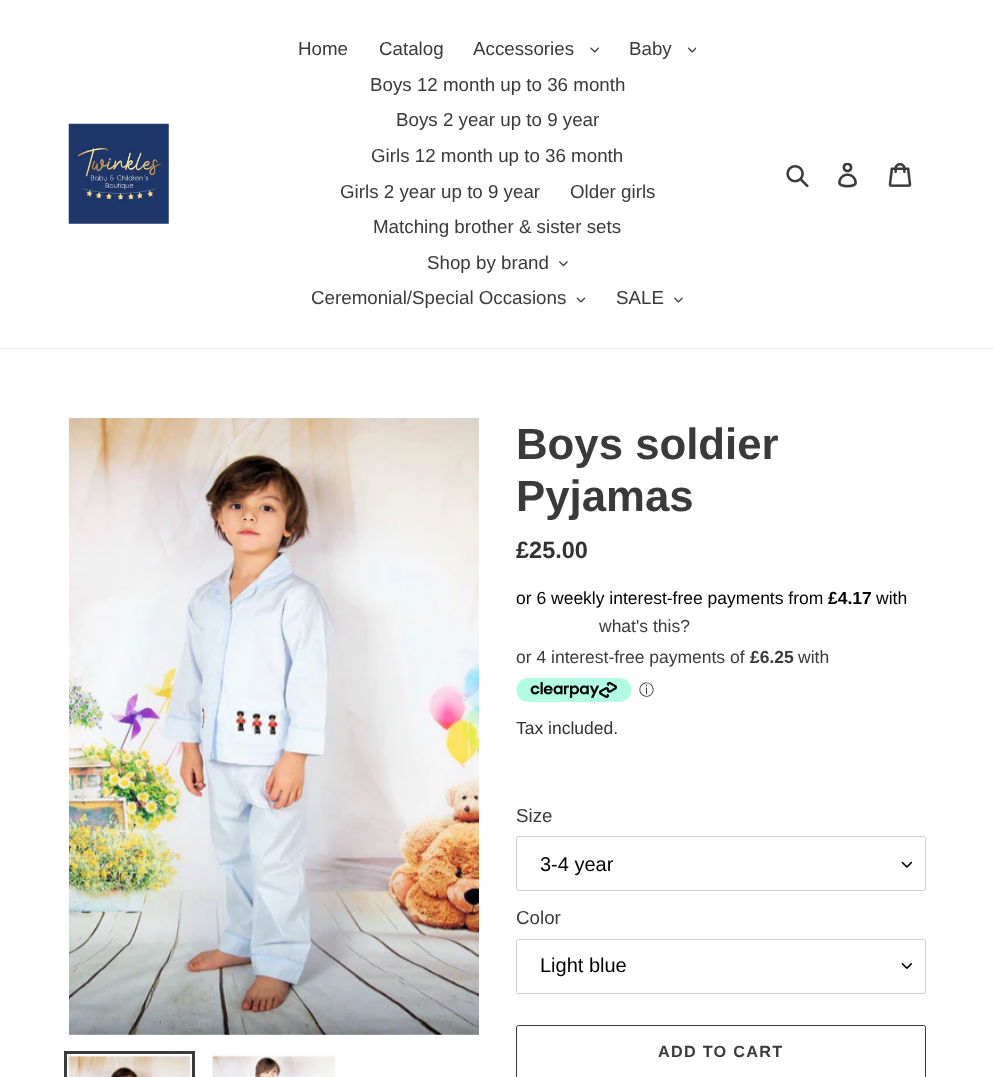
(async () => {
    const canvas = document.querySelector("canvas");
    canvas.width = 994;
    canvas.height = 1077;
    const context = canvas.getContext("2d");
    context.miterLimit = 4;
    context.fontKerning = "normal";
    function write(s, x, y, font, color) {
        context.font = font;
        context.fillStyle = color;
        context.fillText(s, x, y);
    }
    function block(x, y, w, h, color) {
        context.fillStyle = color;
        context.fillRect(x, y, w, h);
    }
    async function photo(src, x, y, w, h) {
        const img = new Image();
        img.src = src;
        await img.decode();
        context.drawImage(img, x, y, w, h);
    }

    block(0, 0, 994, 1077, "rgb(255, 255, 255)");
    block(0, 348, 994, 1, "rgb(235, 235, 235)");
    await photo("media/1.png", 68, 123, 101, 101);
    write("Home", 298, 55, "18.75px Liberation Sans", "rgb(58, 58, 58)");
    write("Catalog", 379, 55, "18.75px Liberation Sans", "rgb(58, 58, 58)");
    write("Accessories", 473, 55, "18.75px Liberation Sans", "rgb(58, 58, 58)");
    await photo("media/2.png", 590, 47, 9, 6);
    write("Baby", 629, 55, "18.75px Liberation Sans", "rgb(58, 58, 58)");
    await photo("media/3.png", 688, 47, 8, 6);
    write("Boys 12 month up to 36 month", 370, 91, "18.75px Liberation Sans", "rgb(58, 58, 58)");
    write("Boys 2 year up to 9 year", 396, 126, "18.75px Liberation Sans", "rgb(58, 58, 58)");
    write("Girls 12 month up to 36 month", 371, 162, "18.75px Liberation Sans", "rgb(58, 58, 58)");
    write("Girls 2 year up to 9 year", 340, 198, "18.75px Liberation Sans", "rgb(58, 58, 58)");
    write("Older girls", 570, 198, "18.75px Liberation Sans", "rgb(58, 58, 58)");
    write("Matching brother & sister sets", 373, 233, "18.75px Liberation Sans", "rgb(58, 58, 58)");
    write("Shop by brand", 427, 269, "18.75px Liberation Sans", "rgb(58, 58, 58)");
    await photo("media/4.png", 559, 261, 9, 6);
    write("Ceremonial/Special Occasions", 311, 304, "18.75px Liberation Sans", "rgb(58, 58, 58)");
    await photo("media/5.png", 576, 297, 10, 6);
    write("SALE", 616, 304, "18.75px Liberation Sans", "rgb(58, 58, 58)");
    await photo("media/6.png", 674, 297, 9, 6);
    await photo("media/7.png", 786, 165, 23, 23);
    await photo("media/8.png", 838, 163, 19, 25);
    await photo("media/9.png", 888, 163, 24, 24);
    await photo("media/10.png", 69, 418, 410, 617);
    context.strokeStyle = "rgb(58, 58, 58)";
    context.lineWidth = 3;
    context.strokeRect(65.5, 1052.5, 128, 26);
    await photo("media/11.png", 68, 1055, 123, 22);
    await photo("media/12.png", 212, 1055, 124, 22);
    write("Boys soldier", 516, 459, "bold 43.75px Liberation Sans", "rgb(58, 58, 58)");
    write("Pyjamas", 516, 511, "bold 43.75px Liberation Sans", "rgb(58, 58, 58)");
    write("£25.00", 516, 558, "bold 23.5px Liberation Sans", "rgb(51, 50, 50)");
    write("or 6 weekly interest-free payments from", 516, 604, "17.5px Liberation Sans", "rgb(0, 0, 0)");
    write("£4.17", 828, 604, "bold 17.5px Liberation Sans", "rgb(0, 0, 0)");
    write("with", 876, 604, "17.5px Liberation Sans", "rgb(0, 0, 0)");
    write("what's this?", 599, 632, "17.5px Liberation Sans", "rgb(58, 58, 58)");
    write("or 4 interest-free payments of", 516, 663, "17.5px Liberation Sans", "rgb(58, 58, 58)");
    write("£6.25", 750, 663, "bold 17.5px Liberation Sans", "rgb(58, 58, 58)");
    write("with", 798, 663, "17.5px Liberation Sans", "rgb(58, 58, 58)");
    await photo("media/13.png", 516, 677, 116, 25);
    write("ⓘ", 639, 695, "500 15px WenQuanYi Zen Hei", "rgb(58, 58, 58)");
    write("Tax included.", 516, 734, "17.5px Liberation Sans", "rgb(51, 50, 50)");
    write("Size", 516, 822, "18.75px Liberation Sans", "rgb(58, 58, 58)");
    await photo("media/14.png", 901, 861, 12, 7);
    context.beginPath();
    context.roundRect(516.5, 836.5, 409, 54, 2);
    context.strokeStyle = "rgb(204, 204, 204)";
    context.lineWidth = 1;
    context.stroke();
    write("3-4 year", 540, 871, "20px Liberation Sans", "rgb(0, 0, 0)");
    write("Color", 516, 924, "18.75px Liberation Sans", "rgb(58, 58, 58)");
    await photo("media/15.png", 901, 963, 12, 6);
    context.beginPath();
    context.roundRect(516.5, 939.5, 409, 54, 2);
    context.stroke();
    write("Light blue", 540, 972, "20px Liberation Sans", "rgb(0, 0, 0)");
    context.beginPath();
    context.roundRect(516.5, 1025.5, 409, 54, 2);
    context.strokeStyle = "rgb(58, 58, 58)";
    context.stroke();
    context.letterSpacing = "1.25px";
    write("ADD TO CART", 658, 1057, "bold 16.25px Liberation Sans", "rgb(58, 58, 58)");
})();
